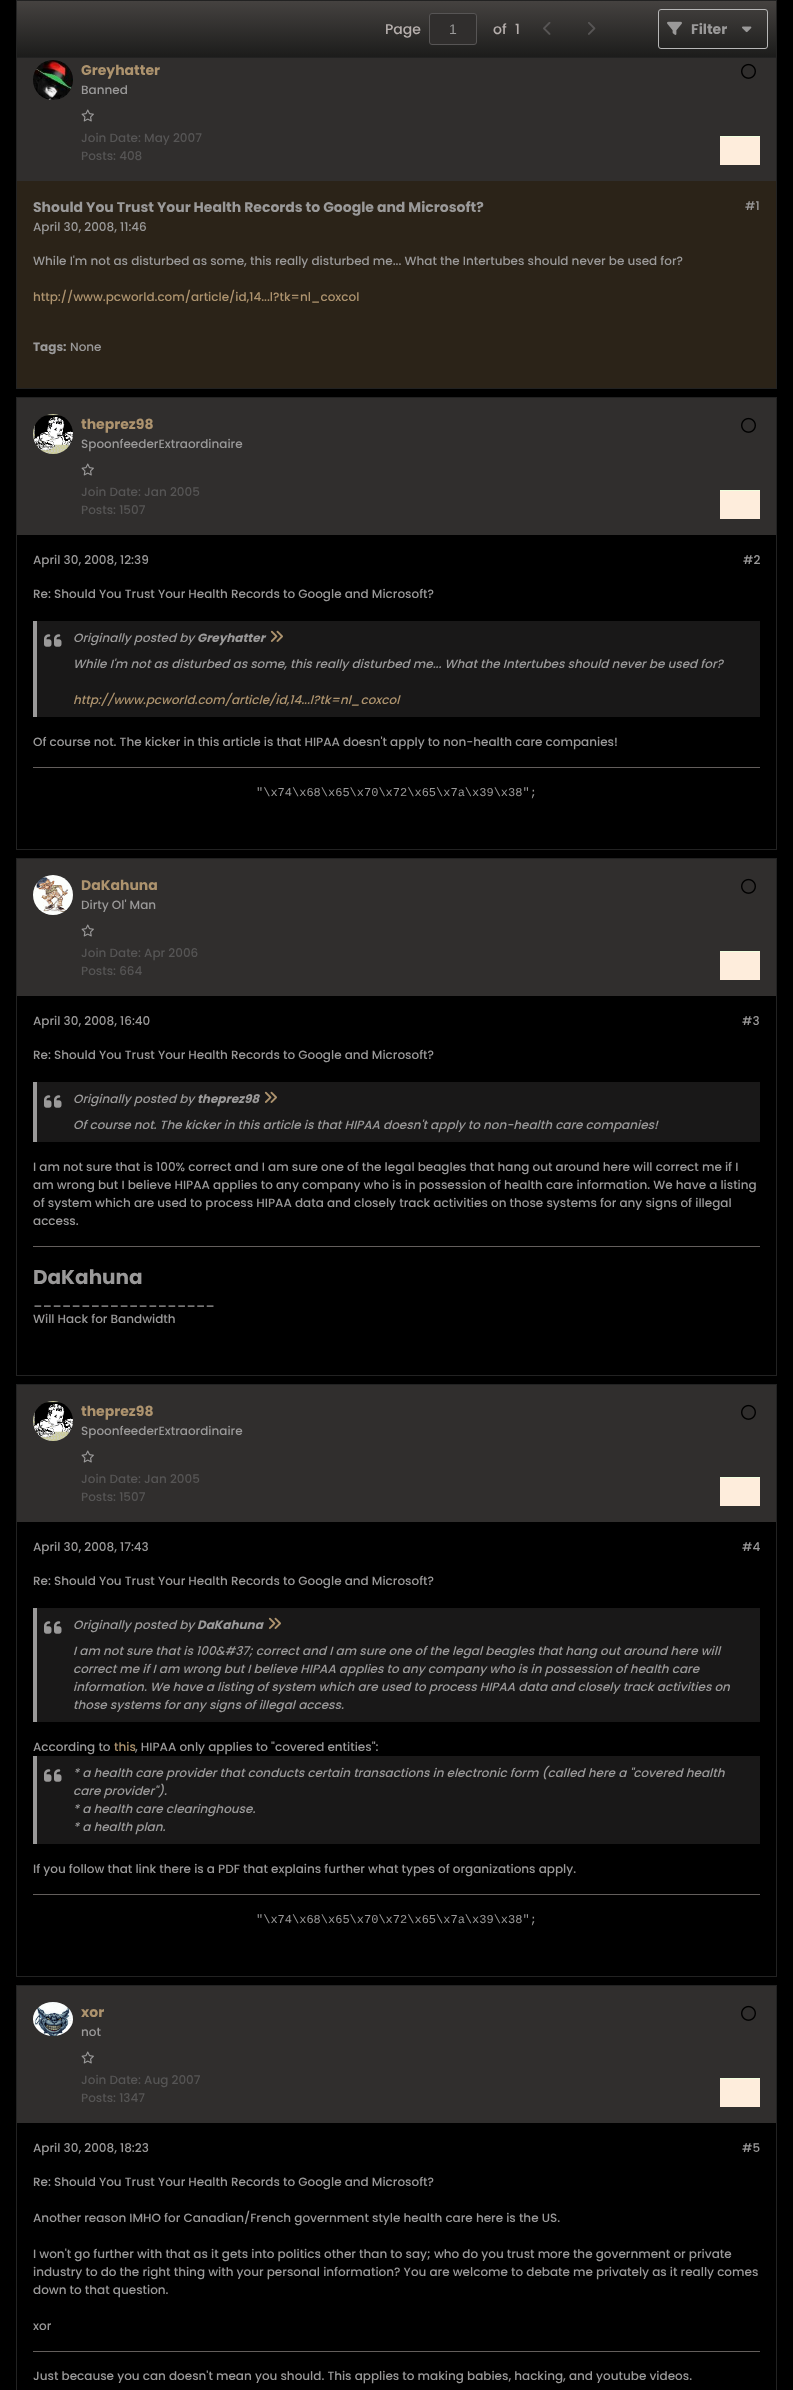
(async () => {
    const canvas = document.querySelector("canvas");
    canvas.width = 793;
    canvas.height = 2390;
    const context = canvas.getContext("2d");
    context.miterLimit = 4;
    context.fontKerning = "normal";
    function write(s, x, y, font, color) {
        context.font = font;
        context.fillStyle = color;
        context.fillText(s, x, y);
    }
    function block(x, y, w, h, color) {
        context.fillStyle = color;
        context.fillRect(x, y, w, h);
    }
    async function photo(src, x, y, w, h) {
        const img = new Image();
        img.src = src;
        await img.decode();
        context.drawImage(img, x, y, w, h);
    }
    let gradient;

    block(0, 0, 793, 2390, "rgb(0, 0, 0)");
    block(17, 58, 759, 123, "rgb(48, 46, 45)");
    context.strokeStyle = "rgb(34, 34, 34)";
    context.strokeRect(16.5, 43.5, 760, 345);
    gradient = context.createLinearGradient(397, 1, 397, 57);
    gradient.addColorStop(0, "rgb(69, 66, 64)");
    gradient.addColorStop(1, "rgb(28, 28, 27)");
    context.fillStyle = gradient;
    context.fillRect(17, 1, 759, 56);
    context.strokeRect(16.5, 0.5, 760, 57);
    write("Page", 385, 34, "500 14px Poppins", "rgb(182, 175, 173)");
    context.fillStyle = "rgb(48, 46, 45)";
    context.beginPath();
    context.roundRect(429.5, 13.5, 47, 31, 2.5);
    context.fill();
    context.strokeStyle = "rgb(87, 85, 85)";
    context.stroke();
    write("1", 449, 34, "14px Liberation Sans", "rgb(154, 153, 153)");
    write("of", 493, 34, "500 14px Poppins", "rgb(182, 175, 173)");
    write("1", 515, 34, "500 14px Poppins", "rgb(182, 175, 173)");
    await photo("media/1.png", 543, 22, 8, 13);
    await photo("media/2.png", 588, 22, 8, 13);
    context.beginPath();
    context.roundRect(658.5, 9.5, 109, 39, 2.5);
    context.strokeStyle = "rgb(183, 183, 183)";
    context.stroke();
    await photo("media/3.png", 667, 21, 15, 14);
    write("Filter", 691, 34, "bold 14px Poppins", "rgb(154, 153, 153)");
    await photo("media/4.png", 742, 26, 10, 7);
    await photo("media/5.png", 33, 60, 40, 40);
    write("Greyhatter", 81, 75, "bold 14px Poppins", "rgb(173, 147, 110)");
    write("Banned", 81, 94, "500 12px Poppins", "rgb(154, 153, 153)");
    await photo("media/6.png", 81, 109, 13, 13);
    write("Join Date: May 2007", 81, 142, "500 12px Poppins", "rgb(86, 85, 85)");
    write("Posts: 408", 81, 160, "500 12px Poppins", "rgb(86, 85, 85)");
    await photo("media/7.png", 741, 63, 15, 16);
    block(720, 136, 40, 1, "rgb(239, 254, 221)");
    block(720, 137, 40, 28, "rgb(254, 237, 220)");
    block(17, 181, 759, 207, "rgb(43, 35, 24)");
    write("Should You Trust Your Health Records to Google and Microsoft?", 33, 212, "bold 14px Poppins", "rgb(154, 153, 153)");
    write("April 30, 2008, 11:46", 33, 231, "500 12px Poppins", "rgb(154, 153, 153)");
    write("#1", 745, 210, "500 12px Poppins", "rgb(154, 153, 153)");
    write("While I'm not as disturbed as some, this really disturbed me... What the Intertubes should never be used for?", 33, 265, "500 12px Poppins", "rgb(154, 153, 153)");
    write("http://www.pcworld.com/article/id,14...l?tk=nl_coxcol", 33, 301, "500 12px Poppins", "rgb(173, 147, 110)");
    write("Tags:", 33, 351, "bold 12px Poppins", "rgb(154, 153, 153)");
    write("None", 70, 351, "500 12px Poppins", "rgb(154, 153, 153)");
    block(17, 398, 759, 137, "rgb(48, 46, 45)");
    context.strokeStyle = "rgb(34, 34, 34)";
    context.strokeRect(16.5, 397.5, 760, 452);
    await photo("media/8.png", 33, 414, 40, 40);
    write("theprez98", 81, 429, "bold 14px Poppins", "rgb(173, 147, 110)");
    write("SpoonfeederExtraordinaire", 81, 448, "500 12px Poppins", "rgb(154, 153, 153)");
    await photo("media/6.png", 81, 463, 13, 13);
    write("Join Date: Jan 2005", 81, 496, "500 12px Poppins", "rgb(86, 85, 85)");
    write("Posts: 1507", 81, 514, "500 12px Poppins", "rgb(86, 85, 85)");
    await photo("media/7.png", 741, 417, 15, 16);
    block(720, 490, 40, 1, "rgb(239, 254, 221)");
    block(720, 491, 40, 28, "rgb(254, 237, 220)");
    write("April 30, 2008, 12:39", 33, 564, "500 12px Poppins", "rgb(154, 153, 153)");
    write("#2", 743, 564, "500 12px Poppins", "rgb(154, 153, 153)");
    write("Re: Should You Trust Your Health Records to Google and Microsoft?", 33, 598, "500 12px Poppins", "rgb(154, 153, 153)");
    block(37, 621, 723, 96, "rgb(25, 24, 24)");
    block(33, 621, 4, 96, "rgb(154, 153, 153)");
    await photo("media/9.png", 44, 634, 18, 13);
    write("Originally posted by", 73, 642, "italic 500 12px Poppins", "rgb(154, 153, 153)");
    write("Greyhatter", 197, 642, "italic bold 12px Poppins", "rgb(154, 153, 153)");
    await photo("media/10.png", 270, 630, 13, 12);
    write("While I'm not as disturbed as some, this really disturbed me... What the Intertubes should never be used for?", 73, 668, "italic 500 12px Poppins", "rgb(154, 153, 153)");
    write("http://www.pcworld.com/article/id,14...l?tk=nl_coxcol", 73, 704, "italic 500 12px Poppins", "rgb(173, 147, 110)");
    write("Of course not. The kicker in this article is that HIPAA doesn't apply to non-health care companies!", 33, 746, "500 12px Poppins", "rgb(154, 153, 153)");
    block(33, 767, 727, 1, "rgb(99, 94, 92)");
    write("\"\\x74\\x68\\x65\\x70\\x72\\x65\\x7a\\x39\\x38\";", 256, 796, "12px Liberation Mono", "rgb(154, 153, 153)");
    block(17, 859, 759, 137, "rgb(48, 46, 45)");
    context.strokeRect(16.5, 858.5, 760, 517);
    await photo("media/11.png", 33, 875, 40, 40);
    write("DaKahuna", 81, 890, "bold 14px Poppins", "rgb(173, 147, 110)");
    write("Dirty Ol' Man", 81, 909, "500 12px Poppins", "rgb(154, 153, 153)");
    await photo("media/6.png", 81, 924, 13, 13);
    write("Join Date: Apr 2006", 81, 957, "500 12px Poppins", "rgb(86, 85, 85)");
    write("Posts: 664", 81, 975, "500 12px Poppins", "rgb(86, 85, 85)");
    await photo("media/7.png", 741, 878, 15, 16);
    block(720, 951, 40, 1, "rgb(239, 254, 221)");
    block(720, 952, 40, 28, "rgb(254, 237, 220)");
    write("April 30, 2008, 16:40", 33, 1025, "500 12px Poppins", "rgb(154, 153, 153)");
    write("#3", 742, 1025, "500 12px Poppins", "rgb(154, 153, 153)");
    write("Re: Should You Trust Your Health Records to Google and Microsoft?", 33, 1059, "500 12px Poppins", "rgb(154, 153, 153)");
    block(37, 1082, 723, 60, "rgb(25, 24, 24)");
    block(33, 1082, 4, 60, "rgb(154, 153, 153)");
    await photo("media/9.png", 44, 1095, 18, 13);
    write("Originally posted by", 73, 1103, "italic 500 12px Poppins", "rgb(154, 153, 153)");
    write("theprez98", 197, 1103, "italic bold 12px Poppins", "rgb(154, 153, 153)");
    await photo("media/10.png", 264, 1091, 13, 12);
    write("Of course not. The kicker in this article is that HIPAA doesn't apply to non-health care companies!", 73, 1129, "italic 500 12px Poppins", "rgb(154, 153, 153)");
    write("I am not sure that is 100% correct and I am sure one of the legal beagles that hang out around here will correct me if I", 33, 1171, "500 12px Poppins", "rgb(154, 153, 153)");
    write("am wrong but I believe HIPAA applies to any company who is in possession of health care information. We have a listing", 33, 1189, "500 12px Poppins", "rgb(154, 153, 153)");
    write("of system which are used to process HIPAA data and closely track activities on those systems for any signs of illegal", 33, 1207, "500 12px Poppins", "rgb(154, 153, 153)");
    write("access.", 33, 1225, "500 12px Poppins", "rgb(154, 153, 153)");
    block(33, 1246, 727, 1, "rgb(99, 94, 92)");
    write("DaKahuna", 33, 1284, "bold 20px Poppins", "rgb(154, 153, 153)");
    write("___________________", 33, 1305, "500 12px Poppins", "rgb(154, 153, 153)");
    write("Will Hack for Bandwidth", 33, 1323, "500 12px Poppins", "rgb(154, 153, 153)");
    block(17, 1385, 759, 137, "rgb(48, 46, 45)");
    context.strokeRect(16.5, 1384.5, 760, 592);
    await photo("media/8.png", 33, 1401, 40, 40);
    write("theprez98", 81, 1416, "bold 14px Poppins", "rgb(173, 147, 110)");
    write("SpoonfeederExtraordinaire", 81, 1435, "500 12px Poppins", "rgb(154, 153, 153)");
    await photo("media/6.png", 81, 1450, 13, 13);
    write("Join Date: Jan 2005", 81, 1483, "500 12px Poppins", "rgb(86, 85, 85)");
    write("Posts: 1507", 81, 1501, "500 12px Poppins", "rgb(86, 85, 85)");
    await photo("media/7.png", 741, 1404, 15, 16);
    block(720, 1477, 40, 1, "rgb(239, 254, 221)");
    block(720, 1478, 40, 28, "rgb(254, 237, 220)");
    write("April 30, 2008, 17:43", 33, 1551, "500 12px Poppins", "rgb(154, 153, 153)");
    write("#4", 742, 1551, "500 12px Poppins", "rgb(154, 153, 153)");
    write("Re: Should You Trust Your Health Records to Google and Microsoft?", 33, 1585, "500 12px Poppins", "rgb(154, 153, 153)");
    block(37, 1608, 723, 114, "rgb(25, 24, 24)");
    block(33, 1608, 4, 114, "rgb(154, 153, 153)");
    await photo("media/9.png", 44, 1621, 18, 13);
    write("Originally posted by", 73, 1629, "italic 500 12px Poppins", "rgb(154, 153, 153)");
    write("DaKahuna", 197, 1629, "italic bold 12px Poppins", "rgb(154, 153, 153)");
    await photo("media/10.png", 268, 1617, 13, 12);
    write("I am not sure that is 100&#37; correct and I am sure one of the legal beagles that hang out around here will", 73, 1655, "italic 500 12px Poppins", "rgb(154, 153, 153)");
    write("correct me if I am wrong but I believe HIPAA applies to any company who is in possession of health care", 73, 1673, "italic 500 12px Poppins", "rgb(154, 153, 153)");
    write("information. We have a listing of system which are used to process HIPAA data and closely track activities on", 73, 1691, "italic 500 12px Poppins", "rgb(154, 153, 153)");
    write("those systems for any signs of illegal access.", 73, 1709, "italic 500 12px Poppins", "rgb(154, 153, 153)");
    write("According to", 33, 1751, "500 12px Poppins", "rgb(154, 153, 153)");
    write("this", 114, 1751, "500 12px Poppins", "rgb(173, 147, 110)");
    write(", HIPAA only applies to \"covered entities\":", 135, 1751, "500 12px Poppins", "rgb(154, 153, 153)");
    block(37, 1756, 723, 88, "rgb(25, 24, 24)");
    block(33, 1756, 4, 88, "rgb(154, 153, 153)");
    await photo("media/9.png", 44, 1769, 18, 13);
    write("* a health care provider that conducts certain transactions in electronic form (called here a \"covered health", 73, 1777, "italic 500 12px Poppins", "rgb(154, 153, 153)");
    write("care provider\").", 73, 1795, "italic 500 12px Poppins", "rgb(154, 153, 153)");
    write("* a health care clearinghouse.", 73, 1813, "italic 500 12px Poppins", "rgb(154, 153, 153)");
    write("* a health plan.", 73, 1831, "italic 500 12px Poppins", "rgb(154, 153, 153)");
    write("If you follow that link there is a PDF that explains further what types of organizations apply.", 33, 1873, "500 12px Poppins", "rgb(154, 153, 153)");
    block(33, 1894, 727, 1, "rgb(99, 94, 92)");
    write("\"\\x74\\x68\\x65\\x70\\x72\\x65\\x7a\\x39\\x38\";", 256, 1923, "12px Liberation Mono", "rgb(154, 153, 153)");
    block(17, 1986, 759, 137, "rgb(48, 46, 45)");
    context.strokeRect(16.5, 1985.5, 760, 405);
    await photo("media/12.png", 33, 2002, 40, 34);
    write("xor", 81, 2017, "bold 14px Poppins", "rgb(173, 147, 110)");
    write("not", 81, 2036, "500 12px Poppins", "rgb(154, 153, 153)");
    await photo("media/6.png", 81, 2051, 13, 13);
    write("Join Date: Aug 2007", 81, 2084, "500 12px Poppins", "rgb(86, 85, 85)");
    write("Posts: 1347", 81, 2102, "500 12px Poppins", "rgb(86, 85, 85)");
    await photo("media/7.png", 741, 2005, 15, 16);
    block(720, 2078, 40, 1, "rgb(239, 254, 221)");
    block(720, 2079, 40, 28, "rgb(254, 237, 220)");
    write("April 30, 2008, 18:23", 33, 2152, "500 12px Poppins", "rgb(154, 153, 153)");
    write("#5", 742, 2152, "500 12px Poppins", "rgb(154, 153, 153)");
    write("Re: Should You Trust Your Health Records to Google and Microsoft?", 33, 2186, "500 12px Poppins", "rgb(154, 153, 153)");
    write("Another reason IMHO for Canadian/French government style health care here is the US.", 33, 2222, "500 12px Poppins", "rgb(154, 153, 153)");
    write("I won't go further with that as it gets into politics other than to say; who do you trust more the government or private", 33, 2258, "500 12px Poppins", "rgb(154, 153, 153)");
    write("industry to do the right thing with your personal information? You are welcome to debate me privately as it really comes", 33, 2276, "500 12px Poppins", "rgb(154, 153, 153)");
    write("down to that question.", 33, 2294, "500 12px Poppins", "rgb(154, 153, 153)");
    write("xor", 33, 2330, "500 12px Poppins", "rgb(154, 153, 153)");
    block(33, 2351, 727, 1, "rgb(99, 94, 92)");
    write("Just because you can doesn't mean you should. This applies to making babies, hacking, and youtube videos.", 33, 2380, "500 12px Poppins", "rgb(154, 153, 153)");
})();
